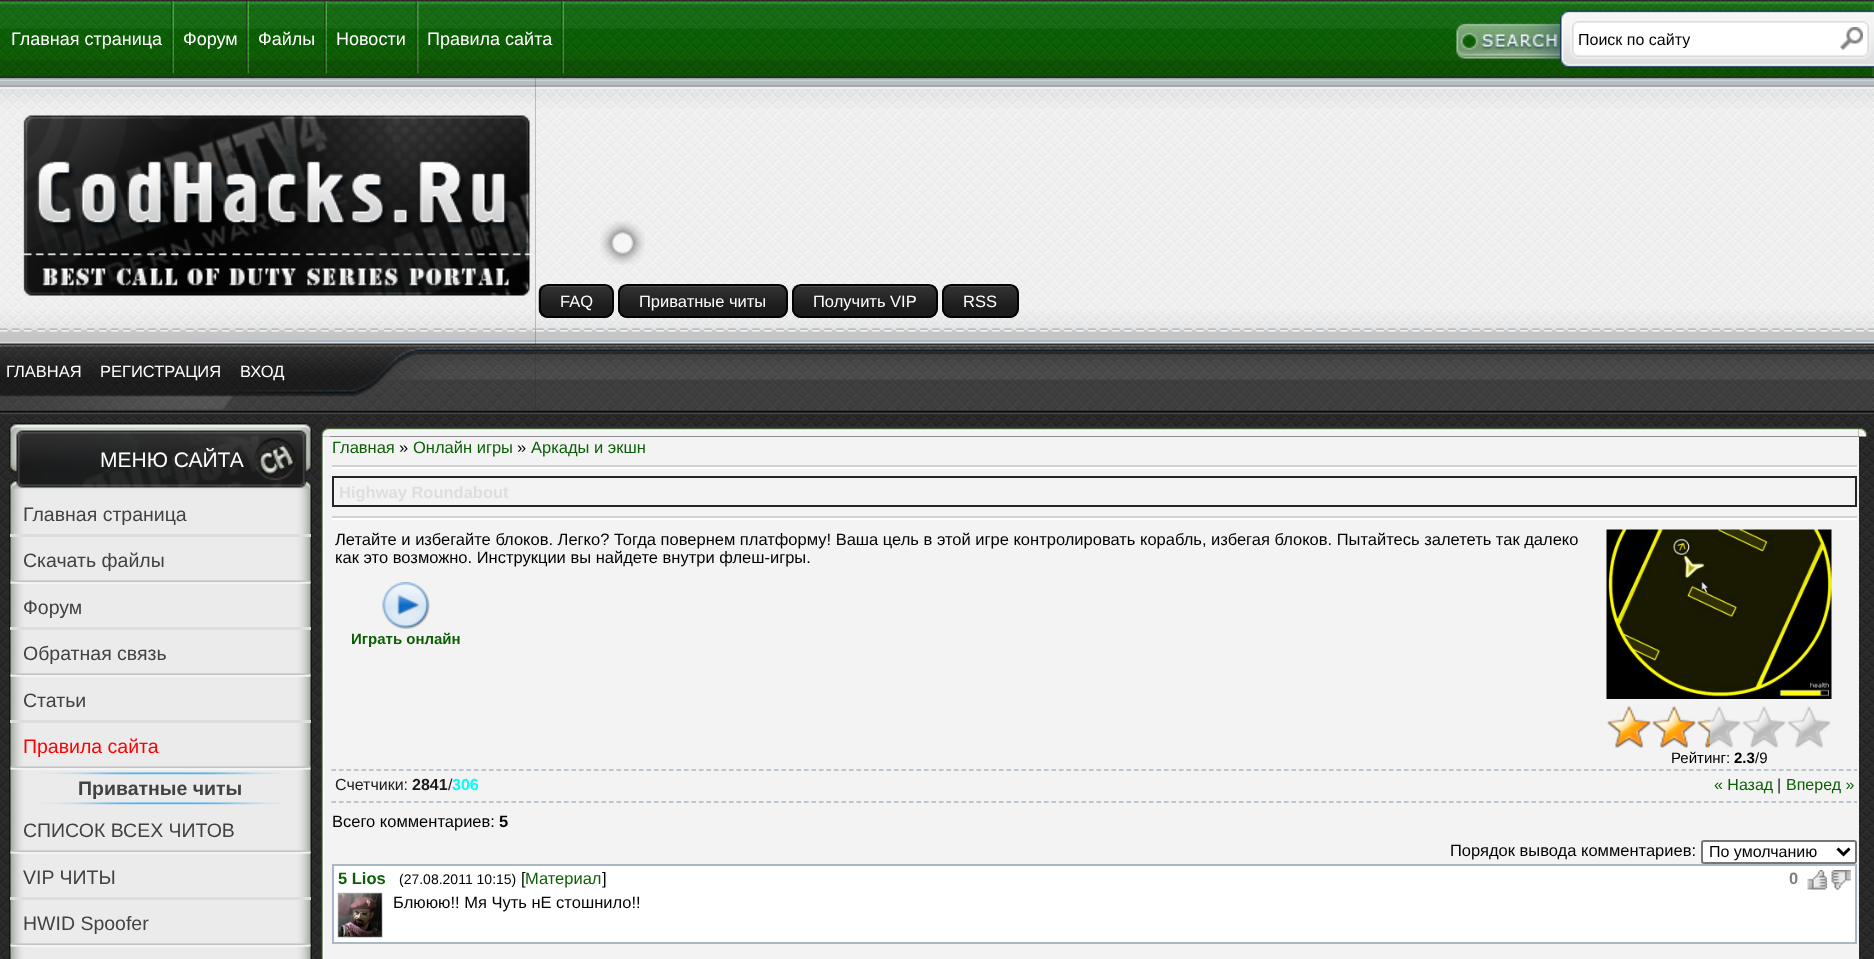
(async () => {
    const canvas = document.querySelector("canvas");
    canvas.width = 1874;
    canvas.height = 959;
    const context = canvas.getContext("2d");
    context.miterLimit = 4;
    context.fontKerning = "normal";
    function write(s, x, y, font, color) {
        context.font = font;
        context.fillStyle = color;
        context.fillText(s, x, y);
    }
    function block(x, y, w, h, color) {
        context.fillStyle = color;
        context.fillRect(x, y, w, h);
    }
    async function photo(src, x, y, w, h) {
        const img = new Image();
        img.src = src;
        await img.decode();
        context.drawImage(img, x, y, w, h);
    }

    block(0, 0, 1874, 959, "rgb(255, 255, 255)");
    await photo("media/1.png", 0, 0, 1874, 959);
    await photo("media/2.png", 0, 1, 1428, 76);
    write("Главная страница", 11, 45, "18px Liberation Sans", "rgb(255, 255, 255)");
    await photo("media/3.png", 171, 1, 3, 73);
    write("Форум", 183, 45, "18px Liberation Sans", "rgb(255, 255, 255)");
    await photo("media/4.png", 246, 1, 3, 73);
    write("Файлы", 258, 45, "18px Liberation Sans", "rgb(255, 255, 255)");
    await photo("media/5.png", 324, 1, 3, 73);
    write("Новости", 336, 45, "18px Liberation Sans", "rgb(255, 255, 255)");
    await photo("media/6.png", 415, 1, 4, 73);
    write("Правила сайта", 427, 45, "18px Liberation Sans", "rgb(255, 255, 255)");
    await photo("media/7.png", 561, 1, 3, 73);
    await photo("media/8.png", 1428, 1, 446, 76);
    await photo("media/9.png", 1570, 21, 301, 38);
    context.save();
    context.beginPath();
    context.rect(1578, 30, 275, 18);
    context.clip();
    write("Поиск по сайту", 1578, 45, "16px Liberation Sans", "rgb(0, 0, 0)");
    context.restore();
    await photo("media/10.png", 1840, 27, 23, 23);
    await photo("media/20.png", 0, 78, 536, 336);
    await photo("media/11.png", 535, 78, 1339, 336);
    await photo("media/12.png", 600, 221, 23, 22);
    await photo("media/13.png", 622, 221, 23, 22);
    await photo("media/14.png", 600, 243, 23, 22);
    await photo("media/15.png", 622, 243, 23, 22);
    await photo("media/16.png", 538, 285, 76, 33);
    await photo("media/17.png", 618, 285, 170, 33);
    await photo("media/18.png", 792, 285, 146, 33);
    await photo("media/19.png", 942, 285, 77, 33);
    context.beginPath();
    context.roundRect(540, 285, 73, 32, 8);
    context.strokeStyle = "rgb(0, 0, 0)";
    context.lineWidth = 2;
    context.stroke();
    write("FAQ", 560, 307, "16.5px Liberation Sans", "rgb(255, 255, 255)");
    context.beginPath();
    context.roundRect(619, 285, 168, 32, 8);
    context.stroke();
    write("Приватные читы", 639, 307, "16.5px Liberation Sans", "rgb(255, 255, 255)");
    context.beginPath();
    context.roundRect(793, 285, 144, 32, 8);
    context.stroke();
    write("Получить VIP", 813, 307, "16.5px Liberation Sans", "rgb(255, 255, 255)");
    context.beginPath();
    context.roundRect(943, 285, 75, 32, 8);
    context.stroke();
    write("RSS", 963, 307, "16.5px Liberation Sans", "rgb(255, 255, 255)");
    write("ГЛАВНАЯ", 6, 377, "16.5px Liberation Sans", "rgb(255, 255, 255)");
    write("РЕГИСТРАЦИЯ", 100, 377, "16.5px Liberation Sans", "rgb(255, 255, 255)");
    write("ВХОД", 240, 377, "16.5px Liberation Sans", "rgb(255, 255, 255)");
    await photo("media/21.png", 9, 423, 303, 66);
    write("МЕНЮ САЙТА", 100, 467, "21px Liberation Sans", "rgb(255, 255, 255)");
    await photo("media/22.png", 9, 489, 303, 470);
    block(10, 534, 301, 3, "rgb(221, 221, 221)");
    write("Главная страница", 23, 521, "19.5px Liberation Sans", "rgb(66, 66, 66)");
    await photo("media/23.png", 10, 580, 301, 4);
    write("Скачать файлы", 23, 567, "19.5px Liberation Sans", "rgb(66, 66, 66)");
    block(10, 627, 301, 3, "rgb(221, 221, 221)");
    write("Форум", 23, 614, "19.5px Liberation Sans", "rgb(66, 66, 66)");
    await photo("media/23.png", 10, 673, 301, 4);
    write("Обратная связь", 23, 660, "19.5px Liberation Sans", "rgb(66, 66, 66)");
    block(10, 720, 301, 3, "rgb(221, 221, 221)");
    write("Статьи", 23, 707, "19.5px Liberation Sans", "rgb(66, 66, 66)");
    await photo("media/23.png", 10, 766, 301, 4);
    write("Правила сайта", 23, 753, "19.5px Liberation Sans", "rgb(255, 0, 0)");
    await photo("media/24.png", 41, 772, 240, 3);
    write("Приватные читы", 78, 795, "bold 19.5px Liberation Sans", "rgb(66, 66, 66)");
    await photo("media/24.png", 41, 802, 240, 3);
    await photo("media/23.png", 10, 850, 301, 4);
    write("СПИСОК ВСЕХ ЧИТОВ", 23, 837, "19.5px Liberation Sans", "rgb(66, 66, 66)");
    block(10, 897, 301, 3, "rgb(221, 221, 221)");
    write("VIP ЧИТЫ", 23, 884, "19.5px Liberation Sans", "rgb(66, 66, 66)");
    await photo("media/23.png", 10, 943, 301, 4);
    write("HWID Spoofer", 23, 930, "19.5px Liberation Sans", "rgb(66, 66, 66)");
    await photo("media/25.png", 321, 427, 9, 10);
    await photo("media/26.png", 330, 427, 1529, 10);
    await photo("media/27.png", 1858, 427, 10, 10);
    await photo("media/28.png", 321, 436, 9, 523);
    block(330, 437, 1529, 522, "rgb(243, 243, 243)");
    write("Главная", 332, 453, "16.5px Liberation Sans", "rgb(12, 94, 6)");
    write("»", 399, 453, "16.5px Liberation Sans", "rgb(0, 0, 0)");
    write("Онлайн игры", 413, 453, "16.5px Liberation Sans", "rgb(12, 94, 6)");
    write("»", 517, 453, "16.5px Liberation Sans", "rgb(0, 0, 0)");
    write("Аркады и экшн", 531, 453, "16.5px Liberation Sans", "rgb(12, 94, 6)");
    block(332, 465, 1525, 2, "rgb(209, 209, 209)");
    block(332, 467, 1525, 2, "rgb(255, 255, 255)");
    context.strokeStyle = "rgb(37, 37, 37)";
    context.strokeRect(333, 477, 1523, 29);
    write("Highway Roundabout", 339, 498, "bold 16.5px Liberation Sans", "rgb(222, 222, 222)");
    block(332, 516, 1525, 2, "rgb(209, 209, 209)");
    block(332, 518, 1525, 2, "rgb(255, 255, 255)");
    write("Летайте и избегайте блоков. Легко? Тогда повернем платформу! Ваша цель в этой игре контролировать корабль, избегая блоков. Пытайтесь залететь так далеко", 335, 545, "16.5px Liberation Sans", "rgb(0, 0, 0)");
    write("как это возможно. Инструкции вы найдете внутри флеш-игры.", 335, 563, "16.5px Liberation Sans", "rgb(0, 0, 0)");
    await photo("media/29.png", 382, 582, 48, 47);
    write("Играть онлайн", 351, 644, "bold 15px Liberation Sans", "rgb(12, 94, 6)");
    await photo("media/30.png", 1606, 529, 226, 170);
    await photo("media/31.png", 1607, 706, 224, 42);
    await photo("media/32.png", 1607, 706, 103, 42);
    write("Рейтинг:", 1671, 763, "15px Liberation Sans", "rgb(0, 0, 0)");
    write("2.3", 1734, 763, "bold 15px Liberation Sans", "rgb(0, 0, 0)");
    write("/9", 1755, 763, "15px Liberation Sans", "rgb(0, 0, 0)");
    context.beginPath();
    context.moveTo(331.5, 770);
    context.lineTo(1857, 770);
    context.strokeStyle = "rgb(169, 184, 194)";
    context.lineWidth = 1.5;
    context.setLineDash([4.5, 3]);
    context.stroke();
    context.beginPath();
    context.moveTo(331.5, 802);
    context.lineTo(1857, 802);
    context.stroke();
    write("Счетчики:", 335, 790, "16px Liberation Sans", "rgb(26, 26, 26)");
    write("2841", 412, 790, "bold 16px Liberation Sans", "rgb(26, 26, 26)");
    write("/", 448, 790, "16px Liberation Sans", "rgb(26, 26, 26)");
    write("306", 452, 790, "bold 16px Liberation Sans", "rgb(0, 255, 255)");
    write("« Назад", 1714, 790, "16px Liberation Sans", "rgb(12, 94, 6)");
    write("|", 1777, 790, "16px Liberation Sans", "rgb(26, 26, 26)");
    write("Вперед »", 1786, 790, "16px Liberation Sans", "rgb(12, 94, 6)");
    write("Всего комментариев:", 332, 827, "16.5px Liberation Sans", "rgb(0, 0, 0)");
    write("5", 499, 827, "bold 16.5px Liberation Sans", "rgb(0, 0, 0)");
    write("Порядок вывода комментариев:", 1450, 856, "16.5px Liberation Sans", "rgb(0, 0, 0)");
    context.fillStyle = "rgb(255, 255, 255)";
    context.beginPath();
    context.roundRect(1702, 841, 154, 22, 2);
    context.fill();
    context.strokeStyle = "rgb(118, 118, 118)";
    context.lineWidth = 2;
    context.setLineDash([]);
    context.stroke();
    context.beginPath();
    context.moveTo(1837.5, 848.5);
    context.lineTo(1843.5, 854.5);
    context.lineTo(1849.5, 848.5);
    context.strokeStyle = "rgb(0, 0, 0)";
    context.lineWidth = 3;
    context.stroke();
    write("По умолчанию", 1709, 857, "16px Liberation Sans", "rgb(0, 0, 0)");
    context.fillStyle = "rgb(255, 255, 255)";
    context.beginPath();
    context.rect(333, 865, 1523, 78);
    context.fill();
    context.strokeStyle = "rgb(169, 184, 194)";
    context.lineWidth = 2;
    context.stroke();
    write("5 Lios", 338, 884, "bold 16.5px Liberation Sans", "rgb(12, 94, 6)");
    write("(27.08.2011 10:15)", 399, 884, "14px Liberation Sans", "rgb(0, 0, 0)");
    write("[", 521, 884, "16.5px Liberation Sans", "rgb(0, 0, 0)");
    write("Материал", 525, 884, "16.5px Liberation Sans", "rgb(12, 94, 6)");
    write("]", 602, 884, "16.5px Liberation Sans", "rgb(0, 0, 0)");
    write("0", 1789, 884, "bold 16.5px Liberation Sans", "rgb(128, 128, 128)");
    await photo("media/33.png", 1807, 870, 20, 20);
    await photo("media/34.png", 1831, 870, 20, 20);
    await photo("media/35.png", 337, 892, 46, 46);
    write("Блююю!! Мя Чуть нЕ стошнило!!", 393, 908, "16.5px Liberation Sans", "rgb(0, 0, 0)");
})();
